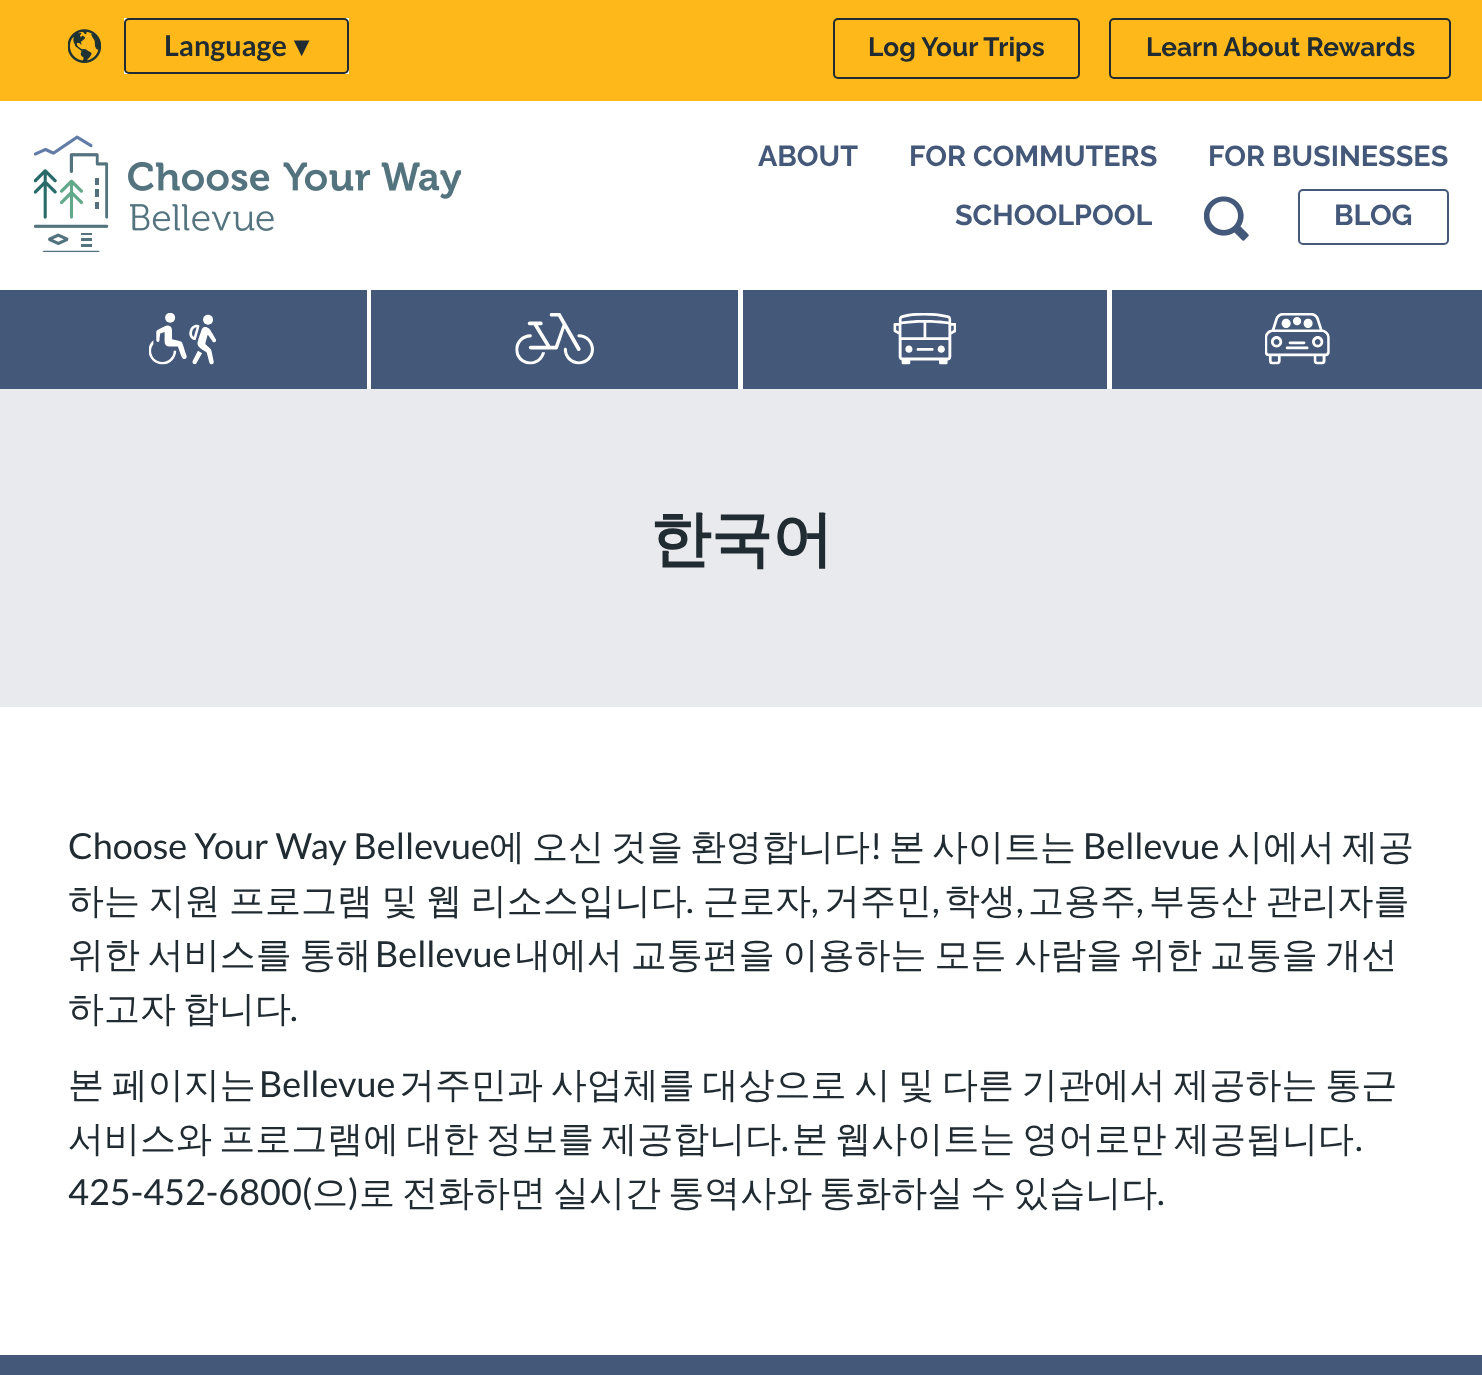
(async () => {
    const canvas = document.querySelector("canvas");
    canvas.width = 1482;
    canvas.height = 1375;
    const context = canvas.getContext("2d");
    context.miterLimit = 4;
    context.fontKerning = "normal";
    function write(s, x, y, font, color) {
        context.font = font;
        context.fillStyle = color;
        context.fillText(s, x, y);
    }
    function block(x, y, w, h, color) {
        context.fillStyle = color;
        context.fillRect(x, y, w, h);
    }
    async function photo(src, x, y, w, h) {
        const img = new Image();
        img.src = src;
        await img.decode();
        context.drawImage(img, x, y, w, h);
    }

    block(0, 0, 1482, 1375, "rgb(255, 255, 255)");
    block(0, 0, 1482, 101, "rgb(255, 184, 25)");
    await photo("media/1.png", 68, 29, 33, 34);
    block(124, 18, 225, 56, "rgb(255, 255, 255)");
    context.fillStyle = "rgb(255, 184, 25)";
    context.beginPath();
    context.roundRect(125, 19, 223, 54, 4);
    context.fill();
    context.strokeStyle = "rgb(32, 43, 50)";
    context.lineWidth = 2;
    context.stroke();
    write("Language", 164, 56, "bold 28.75px Lato", "rgb(32, 43, 50)");
    write("▾", 294, 56, "bold 28.75px DejaVu Sans", "rgb(32, 43, 50)");
    context.beginPath();
    context.roundRect(834, 19, 245, 59, 4);
    context.stroke();
    write("Log Your Trips", 868, 56, "bold 26.25px Raleway", "rgb(32, 43, 50)");
    context.beginPath();
    context.roundRect(1110, 19, 340, 59, 4);
    context.stroke();
    write("Learn About Rewards", 1146, 56, "bold 26.25px Raleway", "rgb(32, 43, 50)");
    await photo("media/2.png", 34, 135, 427, 117);
    write("ABOUT", 758, 166, "bold 28.75px Raleway", "rgb(68, 88, 121)");
    write("FOR COMMUTERS", 909, 166, "bold 28.75px Raleway", "rgb(68, 88, 121)");
    write("FOR BUSINESSES", 1208, 166, "bold 28.75px Raleway", "rgb(68, 88, 121)");
    write("SCHOOLPOOL", 955, 225, "bold 28.75px Raleway", "rgb(68, 88, 121)");
    await photo("media/3.png", 1204, 196, 45, 45);
    context.beginPath();
    context.roundRect(1299, 190, 149, 54, 4);
    context.strokeStyle = "rgb(68, 88, 121)";
    context.stroke();
    write("BLOG", 1334, 225, "bold 28.75px Raleway", "rgb(68, 88, 121)");
    block(0, 290, 367, 99, "rgb(68, 88, 121)");
    await photo("media/4.png", 149, 313, 67, 52);
    block(371, 290, 367, 99, "rgb(68, 88, 121)");
    await photo("media/5.png", 515, 313, 79, 52);
    block(743, 290, 364, 99, "rgb(68, 88, 121)");
    await photo("media/6.png", 893, 313, 63, 52);
    block(1112, 290, 370, 99, "rgb(68, 88, 121)");
    await photo("media/7.png", 1265, 313, 65, 52);
    block(0, 389, 1482, 318, "rgb(233, 234, 237)");
    write("한국어", 650, 560, "bold 61px WenQuanYi Zen Hei", "rgb(32, 43, 50)");
    write("Choose Your Way Bellevue", 68, 859, "36px Lato", "rgb(32, 43, 50)");
    write("에", 489, 859, "500 36px WenQuanYi Zen Hei", "rgb(32, 43, 50)");
    write("오신", 532, 859, "500 36px WenQuanYi Zen Hei", "rgb(32, 43, 50)");
    write("것을", 611, 859, "500 36px WenQuanYi Zen Hei", "rgb(32, 43, 50)");
    write("환영합니다", 690, 859, "500 36px WenQuanYi Zen Hei", "rgb(32, 43, 50)");
    write("!", 870, 859, "36px Lato", "rgb(32, 43, 50)");
    write("본", 889, 859, "500 36px WenQuanYi Zen Hei", "rgb(32, 43, 50)");
    write("사이트는", 932, 859, "500 36px WenQuanYi Zen Hei", "rgb(32, 43, 50)");
    write("Bellevue", 1083, 859, "36px Lato", "rgb(32, 43, 50)");
    write("시에서", 1227, 859, "500 36px WenQuanYi Zen Hei", "rgb(32, 43, 50)");
    write("제공", 1342, 859, "500 36px WenQuanYi Zen Hei", "rgb(32, 43, 50)");
    context.wordSpacing = "-2.25px";
    write("하는 지원 프로그램 및 웹 리소스입니다", 68, 913, "500 36px WenQuanYi Zen Hei", "rgb(32, 43, 50)");
    context.wordSpacing = "0px";
    write(".", 686, 913, "36px Lato", "rgb(32, 43, 50)");
    write("근로자", 703, 913, "500 36px WenQuanYi Zen Hei", "rgb(32, 43, 50)");
    write(",", 811, 913, "36px Lato", "rgb(32, 43, 50)");
    write("거주민", 824, 913, "500 36px WenQuanYi Zen Hei", "rgb(32, 43, 50)");
    write(",", 932, 913, "36px Lato", "rgb(32, 43, 50)");
    write("학생", 944, 913, "500 36px WenQuanYi Zen Hei", "rgb(32, 43, 50)");
    write(",", 1016, 913, "36px Lato", "rgb(32, 43, 50)");
    write("고용주", 1028, 913, "500 36px WenQuanYi Zen Hei", "rgb(32, 43, 50)");
    write(",", 1136, 913, "36px Lato", "rgb(32, 43, 50)");
    context.wordSpacing = "-2.25px";
    write("부동산 관리자를", 1149, 913, "500 36px WenQuanYi Zen Hei", "rgb(32, 43, 50)");
    context.wordSpacing = "-3px";
    write("위한 서비스를 통해", 68, 967, "500 36px WenQuanYi Zen Hei", "rgb(32, 43, 50)");
    context.wordSpacing = "0px";
    write("Bellevue", 375, 967, "36px Lato", "rgb(32, 43, 50)");
    context.wordSpacing = "-3px";
    write("내에서 교통편을 이용하는 모든 사람을 위한 교통을 개선", 515, 967, "500 36px WenQuanYi Zen Hei", "rgb(32, 43, 50)");
    context.wordSpacing = "-3.75px";
    write("하고자 합니다", 68, 1021, "500 36px WenQuanYi Zen Hei", "rgb(32, 43, 50)");
    context.wordSpacing = "0px";
    write(".", 290, 1021, "36px Lato", "rgb(32, 43, 50)");
    context.wordSpacing = "-3px";
    write("본 페이지는", 68, 1097, "500 36px WenQuanYi Zen Hei", "rgb(32, 43, 50)");
    context.wordSpacing = "0px";
    write("Bellevue", 259, 1097, "36px Lato", "rgb(32, 43, 50)");
    context.wordSpacing = "-3px";
    write("거주민과 사업체를 대상으로 시 및 다른 기관에서 제공하는 통근", 399, 1097, "500 36px WenQuanYi Zen Hei", "rgb(32, 43, 50)");
    context.wordSpacing = "-3.5px";
    write("서비스와 프로그램에 대한 정보를 제공합니다", 68, 1151, "500 36px WenQuanYi Zen Hei", "rgb(32, 43, 50)");
    context.wordSpacing = "0px";
    write(".", 781, 1151, "36px Lato", "rgb(32, 43, 50)");
    context.wordSpacing = "-3.5px";
    write("본 웹사이트는 영어로만 제공됩니다", 792, 1151, "500 36px WenQuanYi Zen Hei", "rgb(32, 43, 50)");
    context.wordSpacing = "0px";
    write(".", 1355, 1151, "36px Lato", "rgb(32, 43, 50)");
    write("425-452-6800(", 68, 1205, "36px Lato", "rgb(32, 43, 50)");
    write("으", 312, 1205, "500 36px WenQuanYi Zen Hei", "rgb(32, 43, 50)");
    write(")", 348, 1205, "36px Lato", "rgb(32, 43, 50)");
    context.wordSpacing = "-3.75px";
    write("로 전화하면 실시간 통역사와 통화하실 수 있습니다", 359, 1205, "500 36px WenQuanYi Zen Hei", "rgb(32, 43, 50)");
    context.wordSpacing = "0px";
    write(".", 1157, 1205, "36px Lato", "rgb(32, 43, 50)");
    block(0, 1355, 1482, 20, "rgb(68, 88, 121)");
})();
